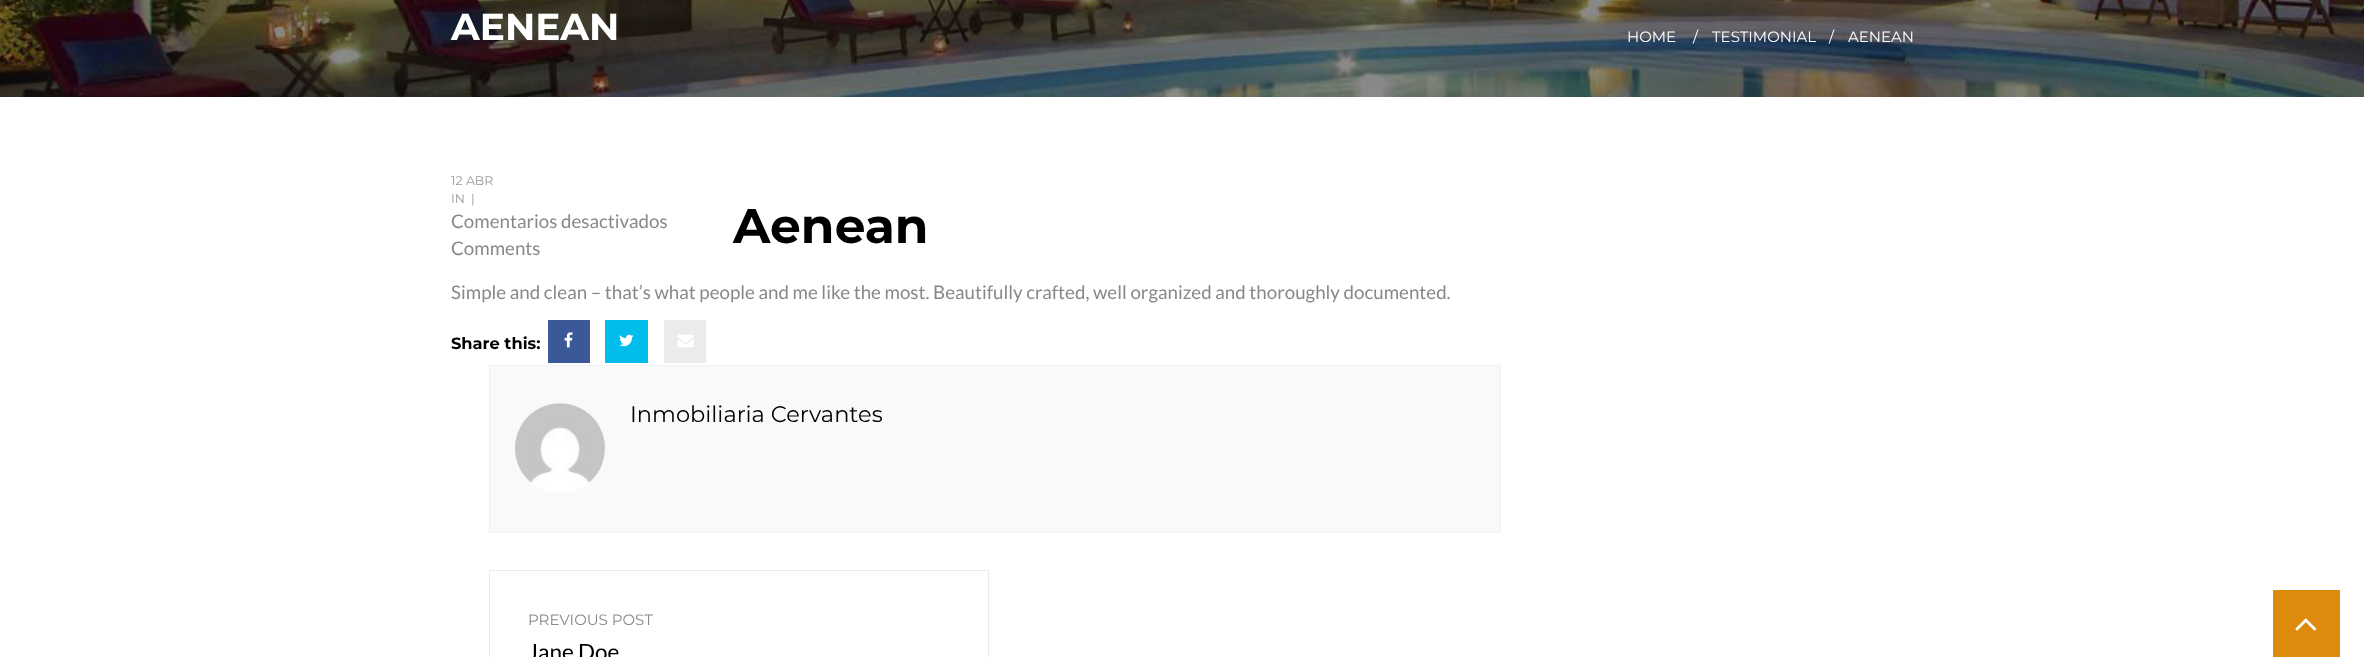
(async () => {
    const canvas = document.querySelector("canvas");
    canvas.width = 2364;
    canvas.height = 657;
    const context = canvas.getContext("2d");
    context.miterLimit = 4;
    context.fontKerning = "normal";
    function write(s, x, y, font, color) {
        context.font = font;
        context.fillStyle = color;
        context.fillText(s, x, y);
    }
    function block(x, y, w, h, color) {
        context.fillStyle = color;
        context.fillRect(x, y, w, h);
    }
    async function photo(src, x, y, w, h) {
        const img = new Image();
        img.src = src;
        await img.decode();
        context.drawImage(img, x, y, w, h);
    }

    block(0, 0, 2364, 657, "rgb(255, 255, 255)");
    await photo("media/1.png", 0, 0, 2364, 97);
    write("AENEAN", 451, 40, "bold 37.5px Montserrat", "rgb(255, 255, 255)");
    write("HOME", 1627, 42, "15px Montserrat", "rgb(255, 255, 255)");
    write("/", 1693, 42, "15px Montserrat", "rgb(255, 255, 255)");
    write("TESTIMONIAL", 1712, 42, "15px Montserrat", "rgb(255, 255, 255)");
    write("/", 1829, 42, "15px Montserrat", "rgb(255, 255, 255)");
    write("AENEAN", 1848, 42, "15px Montserrat", "rgb(255, 255, 255)");
    write("12 ABR", 451, 185, "12.5px Montserrat", "rgb(153, 153, 153)");
    write("IN", 451, 203, "12.5px Montserrat", "rgb(153, 153, 153)");
    write("|", 471, 203, "12.5px Montserrat", "rgb(153, 153, 153)");
    write("Comentarios desactivados", 451, 228, "18.75px Lato", "rgb(136, 136, 136)");
    write("Comments", 451, 255, "18.75px Lato", "rgb(136, 136, 136)");
    write("Aenean", 733, 243, "bold 48.75px Montserrat", "rgb(0, 0, 0)");
    write("Simple and clean – that’s what people and me like the most. Beautifully crafted, well organized and thoroughly documented.", 451, 299, "18.75px Lato", "rgb(136, 136, 136)");
    write("Share this:", 451, 349, "bold 16.25px Montserrat", "rgb(0, 0, 0)");
    block(548, 320, 42, 43, "rgb(59, 89, 152)");
    await photo("media/2.png", 564, 332, 9, 16);
    block(605, 320, 43, 43, "rgb(0, 189, 236)");
    await photo("media/3.png", 619, 334, 15, 13);
    block(664, 320, 42, 43, "rgb(235, 235, 235)");
    await photo("media/4.png", 677, 334, 17, 14);
    context.fillStyle = "rgb(249, 249, 249)";
    context.beginPath();
    context.rect(489.5, 365.5, 1011, 167);
    context.fill();
    context.strokeStyle = "rgb(242, 242, 242)";
    context.stroke();
    await photo("media/5.png", 515, 403, 90, 90);
    write("Inmobiliaria Cervantes", 630, 422, "22.5px Montserrat", "rgb(0, 0, 0)");
    context.strokeStyle = "rgb(235, 235, 235)";
    context.strokeRect(489.5, 570.5, 499, 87);
    write("PREVIOUS POST", 528, 625, "15px Montserrat", "rgb(136, 136, 136)");
    write("Jane Doe", 528, 660, "22.5px Lato", "rgb(0, 0, 0)");
    block(2273, 590, 67, 67, "rgb(221, 138, 13)");
    await photo("media/6.png", 2295, 618, 22, 13);
})();
